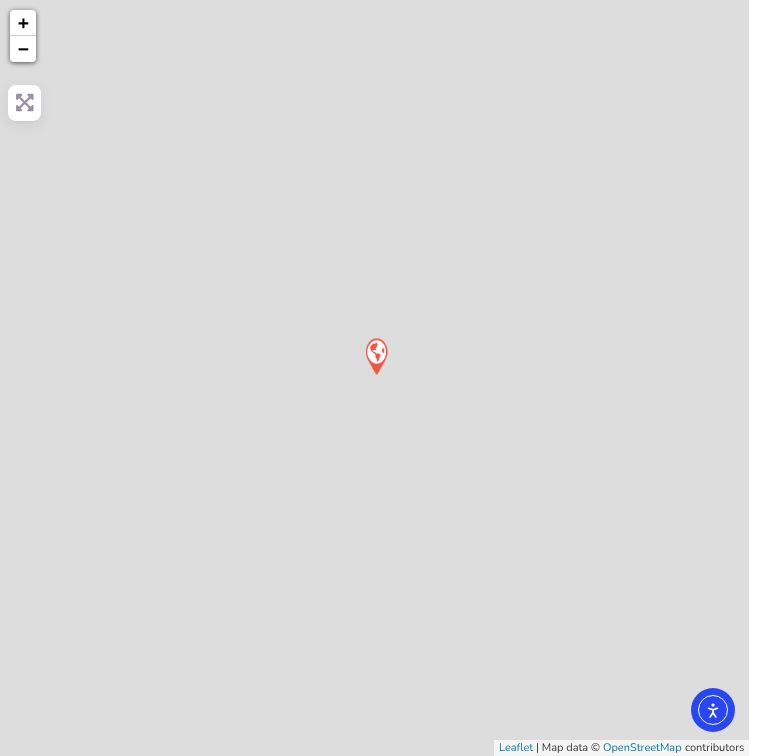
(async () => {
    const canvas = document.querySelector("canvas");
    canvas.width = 759;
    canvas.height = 756;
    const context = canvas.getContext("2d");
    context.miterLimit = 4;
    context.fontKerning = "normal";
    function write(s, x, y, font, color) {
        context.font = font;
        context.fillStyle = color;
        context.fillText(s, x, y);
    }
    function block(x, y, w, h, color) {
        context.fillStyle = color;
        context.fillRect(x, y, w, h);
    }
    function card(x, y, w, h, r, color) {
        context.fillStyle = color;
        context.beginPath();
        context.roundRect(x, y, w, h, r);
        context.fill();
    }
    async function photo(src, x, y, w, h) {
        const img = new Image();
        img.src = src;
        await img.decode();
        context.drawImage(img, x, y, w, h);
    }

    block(0, 0, 759, 756, "rgb(255, 255, 255)");
    block(0, 0, 749, 756, "rgb(221, 221, 221)");
    context.fillStyle = "rgba(0, 0, 0, 0.65)";
    context.filter = "blur(2.5px)";
    context.beginPath();
    context.roundRect(10, 11, 26, 52, 4);
    context.fill();
    context.filter = "none";
    context.fillStyle = "rgb(255, 255, 255)";
    context.beginPath();
    context.roundRect(10, 10, 26, 26, [4, 4, 0, 0]);
    context.fill();
    block(10, 35, 26, 1, "rgb(204, 204, 204)");
    write("+", 18, 29, "bold 18px DejaVu Sans Mono", "rgb(0, 0, 0)");
    context.fillStyle = "rgb(255, 255, 255)";
    context.beginPath();
    context.roundRect(10, 36, 26, 26, [0, 0, 4, 4]);
    context.fill();
    write("−", 18, 55, "bold 18px DejaVu Sans Mono", "rgb(0, 0, 0)");
    block(494, 740, 255, 16, "rgb(245, 245, 245)");
    write("Leaflet", 499, 751, "11px Nunito", "rgb(0, 120, 168)");
    write("| Map data ©", 536, 751, "11px Nunito", "rgb(51, 51, 51)");
    write("OpenStreetMap", 603, 751, "11px Nunito", "rgb(0, 120, 168)");
    write("contributors", 685, 751, "11px Nunito", "rgb(51, 51, 51)");
    await photo("media/1.png", 366, 338, 22, 37);
    context.fillStyle = "rgba(31, 27, 45, 0.08)";
    context.filter = "blur(6px)";
    context.beginPath();
    context.roundRect(8, 89, 33, 36, 8);
    context.fill();
    context.filter = "none";
    context.filter = "blur(1px)";
    context.beginPath();
    context.roundRect(10, 89, 29, 32, 6);
    context.fill();
    context.filter = "none";
    card(8, 85, 33, 36, 8, "rgb(255, 255, 255)");
    await photo("media/2.png", 16, 93, 18, 19);
    context.fillStyle = "rgb(40, 71, 243)";
    context.beginPath();
    context.arc(713, 710, 22, 0, Math.PI * 2);
    context.fill();
    context.beginPath();
    context.arc(713, 710, 14.5, 0, Math.PI * 2);
    context.strokeStyle = "rgb(255, 255, 255)";
    context.stroke();
    await photo("media/3.png", 707, 703, 12, 15);
})();
